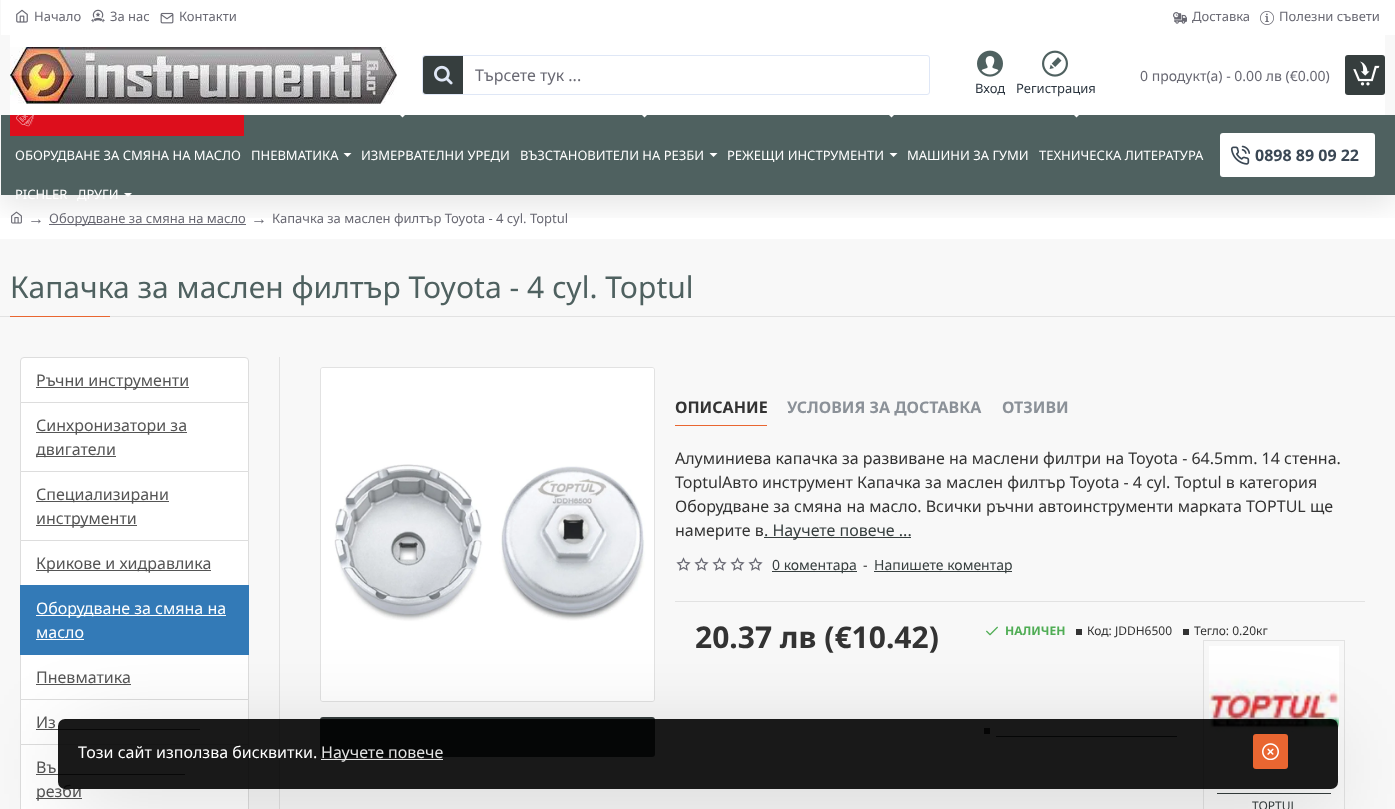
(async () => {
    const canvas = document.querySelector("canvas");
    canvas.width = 1395;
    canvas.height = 809;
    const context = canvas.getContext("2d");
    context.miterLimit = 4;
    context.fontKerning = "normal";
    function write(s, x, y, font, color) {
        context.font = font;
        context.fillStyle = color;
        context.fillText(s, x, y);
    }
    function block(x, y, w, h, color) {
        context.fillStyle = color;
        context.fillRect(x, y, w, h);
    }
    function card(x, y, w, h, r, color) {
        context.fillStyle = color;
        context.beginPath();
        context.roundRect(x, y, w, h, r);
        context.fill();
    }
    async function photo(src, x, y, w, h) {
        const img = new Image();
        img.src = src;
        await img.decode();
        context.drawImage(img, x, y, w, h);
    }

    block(0, 0, 1395, 809, "rgb(248, 248, 248)");
    block(0, 195, 1395, 44, "rgb(255, 255, 255)");
    await photo("media/13.png", 11, 211, 11, 13);
    block(49, 224, 197, 1, "rgb(105, 105, 115)");
    context.save();
    context.beginPath();
    context.rect(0, 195, 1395, 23);
    context.clip();
    context.fillStyle = "rgba(0, 0, 0, 0.1)";
    context.filter = "blur(15px)";
    context.beginPath();
    context.rect(0, 10, 1395, 195);
    context.fill();
    context.filter = "none";
    context.restore();
    block(1, 0, 1394, 35, "rgb(255, 255, 255)");
    await photo("media/1.png", 16, 9, 12, 14);
    write("Начало", 34, 21, "13px Noto Sans", "rgb(105, 105, 115)");
    await photo("media/2.png", 91, 9, 14, 14);
    write("За нас", 110, 21, "13px Noto Sans", "rgb(105, 105, 115)");
    await photo("media/3.png", 160, 12, 14, 12);
    write("Контакти", 179, 21, "13px Noto Sans", "rgb(105, 105, 115)");
    await photo("media/4.png", 1173, 12, 14, 12);
    write("Доставка", 1192, 21, "13px Noto Sans", "rgb(105, 105, 115)");
    await photo("media/5.png", 1260, 11, 14, 14);
    write("Полезни съвети", 1279, 21, "13px Noto Sans", "rgb(105, 105, 115)");
    block(1, 115, 1394, 80, "rgb(79, 97, 96)");
    context.fillStyle = "rgb(255, 255, 255)";
    context.beginPath();
    context.moveTo(398.5, 113.5);
    context.lineTo(406.5, 113.5);
    context.lineTo(402.5, 117.5);
    context.closePath();
    context.fill();
    context.beginPath();
    context.moveTo(640.5, 113.5);
    context.lineTo(648.5, 113.5);
    context.lineTo(644.5, 117.5);
    context.closePath();
    context.fill();
    context.beginPath();
    context.moveTo(887.5, 113.5);
    context.lineTo(895.5, 113.5);
    context.lineTo(891.5, 117.5);
    context.closePath();
    context.fill();
    context.beginPath();
    context.moveTo(1072.5, 113.5);
    context.lineTo(1080.5, 113.5);
    context.lineTo(1076.5, 117.5);
    context.closePath();
    context.fill();
    block(10, 35, 1375, 80, "rgb(255, 255, 255)");
    await photo("media/6.png", 10, 47, 387, 57);
    context.beginPath();
    context.roundRect(422.5, 55.5, 507, 39, 2.5);
    context.strokeStyle = "rgb(223, 231, 246)";
    context.stroke();
    context.fillStyle = "rgb(54, 62, 62)";
    context.beginPath();
    context.roundRect(423, 56, 40, 38, [3, 0, 0, 3]);
    context.fill();
    await photo("media/7.png", 434, 65, 19, 20);
    write("Търсете тук ...", 475, 81, "16px Noto Sans", "rgb(105, 105, 115)");
    write("0 продукт(а) - 0.00 лв (€0.00)", 1140, 81, "14px Noto Sans", "rgb(105, 105, 115)");
    card(1345, 55, 40, 40, 3, "rgb(54, 62, 62)");
    await photo("media/8.png", 1353, 61, 27, 25);
    await photo("media/9.png", 977, 50, 26, 27);
    write("Вход", 975, 93, "13px Noto Sans", "rgb(44, 54, 64)");
    await photo("media/10.png", 1042, 50, 26, 27);
    write("Регистрация", 1016, 93, "13px Noto Sans", "rgb(44, 54, 64)");
    block(10, 115, 234, 21, "rgb(221, 14, 28)");
    await photo("media/11.png", 16, 115, 18, 12);
    write("ОБОРУДВАНЕ ЗА СМЯНА НА МАСЛО", 15, 160, "13px Noto Sans", "rgb(255, 255, 255)");
    write("ПНЕВМАТИКА", 251, 160, "13px Noto Sans", "rgb(255, 255, 255)");
    context.beginPath();
    context.moveTo(343.5, 153);
    context.lineTo(351.5, 153);
    context.lineTo(347.5, 157);
    context.closePath();
    context.fill();
    write("ИЗМЕРВАТЕЛНИ УРЕДИ", 361, 160, "13px Noto Sans", "rgb(255, 255, 255)");
    write("ВЪЗСТАНОВИТЕЛИ НА РЕЗБИ", 520, 160, "13px Noto Sans", "rgb(255, 255, 255)");
    context.beginPath();
    context.moveTo(709.5, 153);
    context.lineTo(717.5, 153);
    context.lineTo(713.5, 157);
    context.closePath();
    context.fill();
    write("РЕЖЕЩИ ИНСТРУМЕНТИ", 727, 160, "13px Noto Sans", "rgb(255, 255, 255)");
    context.beginPath();
    context.moveTo(889.5, 153);
    context.lineTo(897.5, 153);
    context.lineTo(893.5, 157);
    context.closePath();
    context.fill();
    write("МАШИНИ ЗА ГУМИ", 907, 160, "13px Noto Sans", "rgb(255, 255, 255)");
    write("ТЕХНИЧЕСКА ЛИТЕРАТУРА", 1039, 160, "13px Noto Sans", "rgb(255, 255, 255)");
    write("PICHLER", 15, 199, "13px Noto Sans", "rgb(255, 255, 255)");
    write("ДРУГИ", 77, 199, "13px Noto Sans", "rgb(255, 255, 255)");
    context.beginPath();
    context.moveTo(124, 193);
    context.lineTo(132, 193);
    context.lineTo(128, 197);
    context.closePath();
    context.fill();
    card(1220, 133, 155, 44, 3, "rgb(255, 255, 255)");
    await photo("media/12.png", 1230, 145, 20, 20);
    write("0898 89 09 22", 1255, 161, "bold 16px Noto Sans", "rgb(58, 71, 84)");
    write("→", 28, 224, "16px Liberation Serif", "rgb(105, 105, 115)");
    write("Оборудване за смяна на масло", 49, 223, "13px Noto Sans", "rgb(105, 105, 115)");
    write("→", 251, 224, "16px Liberation Serif", "rgb(105, 105, 115)");
    write("Капачка за маслен филтър Toyota - 4 cyl. Toptul", 272, 223, "13px Noto Sans", "rgb(105, 105, 115)");
    block(0, 316, 1395, 1, "rgb(226, 226, 226)");
    write("Капачка за маслен филтър Toyota - 4 cyl. Toptul", 10, 298, "30px Noto Sans", "rgb(79, 97, 96)");
    block(10, 316, 100, 1, "rgb(233, 102, 49)");
    block(279, 357, 1, 452, "rgb(226, 226, 226)");
    context.fillStyle = "rgb(255, 255, 255)";
    context.beginPath();
    context.roundRect(20.5, 357.5, 228, 45, [3.5, 3.5, 0, 0]);
    context.fill();
    context.strokeStyle = "rgb(221, 221, 221)";
    context.stroke();
    block(36, 387, 153, 1, "rgb(85, 85, 85)");
    write("Ръчни инструменти", 36, 386, "16px Noto Sans", "rgb(85, 85, 85)");
    context.fillStyle = "rgb(255, 255, 255)";
    context.beginPath();
    context.rect(20.5, 402.5, 228, 69);
    context.fill();
    context.stroke();
    block(36, 432, 151, 1, "rgb(85, 85, 85)");
    write("Синхронизатори за", 36, 431, "16px Noto Sans", "rgb(85, 85, 85)");
    block(36, 456, 80, 1, "rgb(85, 85, 85)");
    write("двигатели", 36, 455, "16px Noto Sans", "rgb(85, 85, 85)");
    context.fillStyle = "rgb(255, 255, 255)";
    context.beginPath();
    context.rect(20.5, 471.5, 228, 69);
    context.fill();
    context.stroke();
    block(36, 501, 133, 1, "rgb(85, 85, 85)");
    write("Специализирани", 36, 500, "16px Noto Sans", "rgb(85, 85, 85)");
    block(36, 525, 101, 1, "rgb(85, 85, 85)");
    write("инструменти", 36, 524, "16px Noto Sans", "rgb(85, 85, 85)");
    context.fillStyle = "rgb(255, 255, 255)";
    context.beginPath();
    context.rect(20.5, 540.5, 228, 45);
    context.fill();
    context.stroke();
    block(36, 570, 175, 1, "rgb(85, 85, 85)");
    write("Крикове и хидравлика", 36, 569, "16px Noto Sans", "rgb(85, 85, 85)");
    context.fillStyle = "rgb(255, 255, 255)";
    context.beginPath();
    context.rect(20.5, 654.5, 228, 45);
    context.fill();
    context.stroke();
    block(20, 585, 229, 70, "rgb(51, 122, 183)");
    block(36, 615, 190, 1, "rgb(255, 255, 255)");
    write("Оборудване за смяна на", 36, 614, "16px Noto Sans", "rgb(255, 255, 255)");
    write("масло", 36, 638, "16px Noto Sans", "rgb(255, 255, 255)");
    block(36, 639, 48, 1, "rgb(255, 255, 255)");
    write("Пневматика", 36, 683, "16px Noto Sans", "rgb(85, 85, 85)");
    block(36, 684, 95, 1, "rgb(85, 85, 85)");
    context.fillStyle = "rgb(255, 255, 255)";
    context.beginPath();
    context.rect(20.5, 699.5, 228, 45);
    context.fill();
    context.stroke();
    write("Из", 36, 728, "16px Noto Sans", "rgb(85, 85, 85)");
    block(36, 729, 164, 1, "rgb(85, 85, 85)");
    context.fillStyle = "rgb(255, 255, 255)";
    context.beginPath();
    context.rect(20.5, 744.5, 228, 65);
    context.fill();
    context.stroke();
    write("Въ", 36, 773, "16px Noto Sans", "rgb(85, 85, 85)");
    block(36, 774, 149, 1, "rgb(85, 85, 85)");
    block(36, 798, 46, 1, "rgb(85, 85, 85)");
    write("резби", 36, 797, "16px Noto Sans", "rgb(85, 85, 85)");
    context.beginPath();
    context.roundRect(320.5, 367.5, 334, 334, 2.5);
    context.strokeStyle = "rgb(226, 226, 226)";
    context.stroke();
    await photo("media/14.png", 321, 368, 333, 333);
    card(320, 717, 335, 40, 3, "rgb(54, 62, 62)");
    block(675, 425, 92, 1, "rgb(233, 102, 49)");
    write("ОПИСАНИЕ", 675, 413, "bold 16px Noto Sans", "rgb(51, 51, 51)");
    write("УСЛОВИЯ ЗА ДОСТАВКА", 787, 413, "bold 16px Noto Sans", "rgb(139, 145, 152)");
    write("ОТЗИВИ", 1002, 413, "bold 16px Noto Sans", "rgb(139, 145, 152)");
    write("Алуминиева капачка за развиване на маслени филтри на Toyota - 64.5mm. 14 стенна.", 675, 464, "16px Noto Sans", "rgb(51, 51, 51)");
    write("ToptulАвто инструмент Капачка за маслен филтър Toyota - 4 cyl. Toptul в категория", 675, 488, "16px Noto Sans", "rgb(51, 51, 51)");
    write("Оборудване за смяна на масло. Всички ръчни автоинструменти марката TOPTUL ще", 675, 512, "16px Noto Sans", "rgb(51, 51, 51)");
    write("намерите в", 675, 536, "16px Noto Sans", "rgb(51, 51, 51)");
    block(764, 537, 147, 1, "rgb(54, 62, 62)");
    write(". Научете повече ...", 764, 536, "16px Noto Sans", "rgb(54, 62, 62)");
    block(675, 601, 690, 1, "rgb(226, 226, 226)");
    await photo("media/15.png", 676, 557, 15, 14);
    await photo("media/15.png", 694, 557, 15, 14);
    await photo("media/15.png", 712, 557, 15, 14);
    await photo("media/15.png", 730, 557, 15, 14);
    await photo("media/15.png", 748, 557, 15, 14);
    block(772, 571, 85, 1, "rgb(54, 62, 62)");
    write("0 коментара", 772, 570, "14px Noto Sans", "rgb(54, 62, 62)");
    write("-", 863, 570, "14px Noto Sans", "rgb(51, 51, 51)");
    block(874, 571, 138, 1, "rgb(54, 62, 62)");
    write("Напишете коментар", 874, 570, "14px Noto Sans", "rgb(54, 62, 62)");
    write("20.37 лв (€10.42)", 695, 648, "bold 30px Noto Sans", "rgb(51, 51, 51)");
    await photo("media/16.png", 986, 626, 12, 10);
    write("НАЛИЧЕН", 1005, 635, "bold 12px Noto Sans", "rgb(80, 173, 85)");
    block(1076, 629, 6, 6, "rgb(51, 51, 51)");
    write("Код: JDDH6500", 1087, 635, "12px Noto Sans", "rgb(51, 51, 51)");
    block(1183, 629, 6, 6, "rgb(51, 51, 51)");
    write("Тегло: 0.20кг", 1194, 635, "12px Noto Sans", "rgb(51, 51, 51)");
    block(984, 728, 6, 6, "rgb(51, 51, 51)");
    block(996, 736, 181, 1, "rgb(54, 62, 62)");
    context.strokeRect(1203.5, 640.5, 141, 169);
    await photo("media/17.png", 1209, 646, 130, 130);
    write("TOPTUL", 1252, 810, "12px Noto Sans", "rgb(54, 62, 62)");
    block(1217, 793, 114, 1, "rgb(54, 62, 62)");
    context.save();
    context.beginPath();
    context.moveTo(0, 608);
    context.lineTo(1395, 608);
    context.lineTo(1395, 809);
    context.lineTo(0, 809);
    context.closePath();
    context.moveTo(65, 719);
    context.lineTo(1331, 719);
    context.bezierCurveTo(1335, 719, 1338, 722, 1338, 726);
    context.lineTo(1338, 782);
    context.bezierCurveTo(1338, 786, 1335, 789, 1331, 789);
    context.lineTo(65, 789);
    context.bezierCurveTo(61, 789, 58, 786, 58, 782);
    context.lineTo(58, 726);
    context.bezierCurveTo(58, 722, 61, 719, 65, 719);
    context.closePath();
    context.clip("evenodd");
    context.fillStyle = "rgba(0, 0, 0, 0.2)";
    context.filter = "blur(45px)";
    context.beginPath();
    context.rect(68, 744, 1260, 50);
    context.fill();
    context.filter = "none";
    context.restore();
    card(58, 719, 1280, 70, 7, "rgba(0, 0, 0, 0.9)");
    write("Този сайт използва бисквитки.", 78, 758, "16px Noto Sans", "rgb(255, 255, 255)");
    block(321, 759, 122, 1, "rgb(226, 226, 226)");
    write("Научете повече", 321, 758, "16px Noto Sans", "rgb(226, 226, 226)");
    card(1253, 734, 35, 35, 3, "rgb(233, 102, 49)");
    await photo("media/18.png", 1262, 743, 17, 17);
})();
